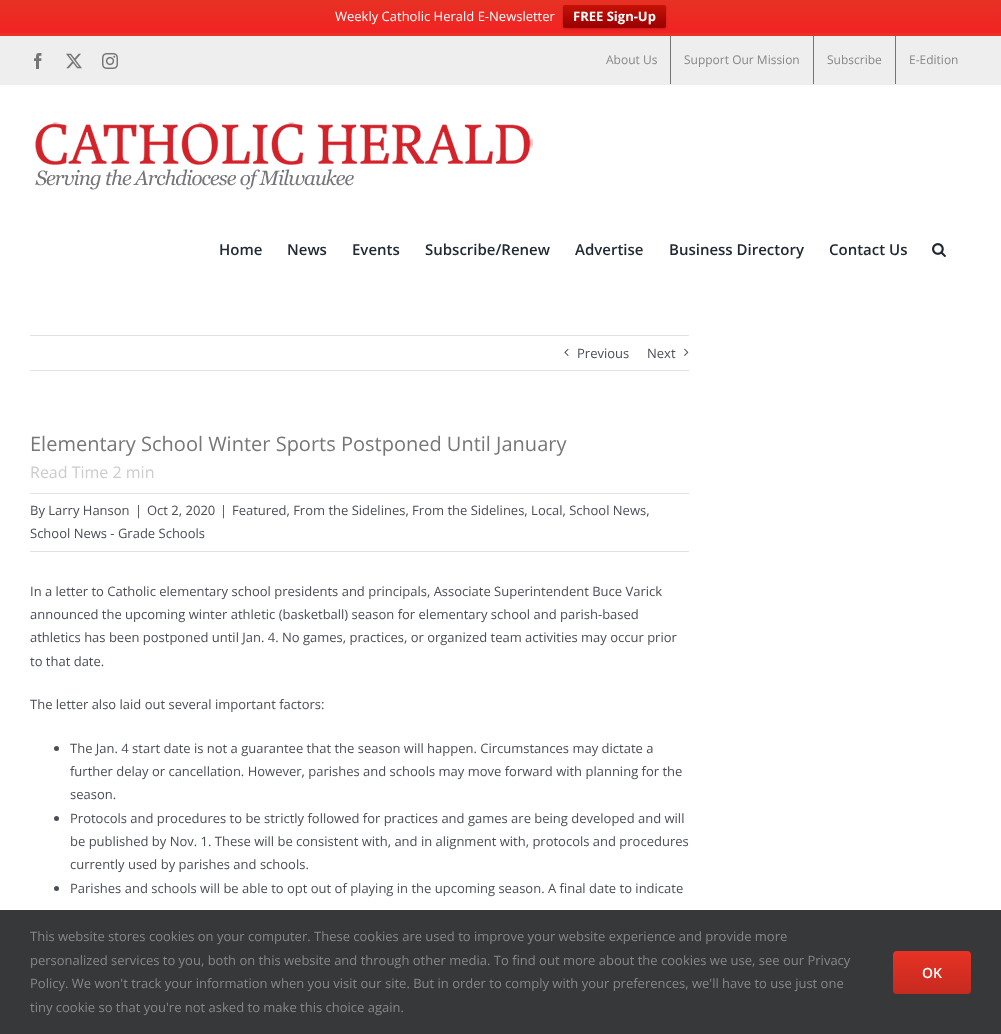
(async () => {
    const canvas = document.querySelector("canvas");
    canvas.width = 1001;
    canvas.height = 1034;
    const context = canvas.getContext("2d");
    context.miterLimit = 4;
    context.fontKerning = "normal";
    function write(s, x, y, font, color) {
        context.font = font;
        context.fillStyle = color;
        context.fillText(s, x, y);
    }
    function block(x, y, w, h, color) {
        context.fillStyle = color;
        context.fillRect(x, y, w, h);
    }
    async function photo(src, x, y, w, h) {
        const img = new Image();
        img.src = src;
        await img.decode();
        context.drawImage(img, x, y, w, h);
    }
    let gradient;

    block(0, 0, 1001, 1034, "rgb(255, 255, 255)");
    gradient = context.createLinearGradient(501, 0, 501, 33);
    gradient.addColorStop(0, "rgb(231, 50, 37)");
    gradient.addColorStop(1, "rgb(242, 34, 34)");
    context.fillStyle = gradient;
    context.fillRect(0, 0, 1001, 33);
    write("Weekly Catholic Herald E-Newsletter", 335, 21, "13px Open Sans", "rgb(255, 255, 255)");
    context.fillStyle = "rgba(0, 0, 0, 0.2)";
    context.filter = "blur(1px)";
    context.beginPath();
    context.roundRect(563, 6, 103, 23, 2);
    context.fill();
    context.filter = "none";
    gradient = context.createLinearGradient(615, 5, 615, 28);
    gradient.addColorStop(0, "rgb(199, 18, 7)");
    gradient.addColorStop(1, "rgb(153, 0, 0)");
    context.fillStyle = gradient;
    context.beginPath();
    context.roundRect(563, 5, 103, 23, 2);
    context.fill();
    write("FREE Sign-Up", 573, 21, "bold 13px Open Sans", "rgb(255, 255, 255)");
    block(0, 36, 1001, 49, "rgb(238, 238, 238)");
    block(0, 33, 1001, 3, "rgb(231, 50, 37)");
    await photo("media/1.png", 34, 53, 8, 16);
    await photo("media/2.png", 66, 53, 16, 16);
    await photo("media/3.png", 102, 53, 16, 16);
    write("About Us", 606, 64, "12px Open Sans", "rgb(135, 135, 135)");
    block(670, 36, 1, 48, "rgb(117, 117, 117)");
    write("Support Our Mission", 684, 64, "12px Open Sans", "rgb(135, 135, 135)");
    block(813, 36, 1, 48, "rgb(117, 117, 117)");
    write("Subscribe", 827, 64, "12px Open Sans", "rgb(135, 135, 135)");
    block(895, 36, 1, 48, "rgb(117, 117, 117)");
    write("E-Edition", 909, 64, "12px Open Sans", "rgb(135, 135, 135)");
    await photo("media/4.png", 35, 122, 498, 68);
    write("Home", 219, 255, "600 15px Open Sans", "rgb(33, 41, 52)");
    write("News", 287, 255, "600 15px Open Sans", "rgb(33, 41, 52)");
    write("Events", 352, 255, "600 15px Open Sans", "rgb(33, 41, 52)");
    write("Subscribe/Renew", 425, 255, "600 15px Open Sans", "rgb(33, 41, 52)");
    write("Advertise", 575, 255, "600 15px Open Sans", "rgb(33, 41, 52)");
    write("Business Directory", 669, 255, "600 15px Open Sans", "rgb(33, 41, 52)");
    write("Contact Us", 829, 255, "600 15px Open Sans", "rgb(33, 41, 52)");
    await photo("media/5.png", 932, 243, 14, 14);
    block(30, 335, 659, 1, "rgb(226, 226, 226)");
    block(30, 370, 659, 1, "rgb(226, 226, 226)");
    await photo("media/6.png", 564, 348, 5, 8);
    write("Previous", 577, 358, "13px Open Sans", "rgb(74, 78, 87)");
    write("Next", 647, 358, "13px Open Sans", "rgb(74, 78, 87)");
    await photo("media/7.png", 684, 348, 5, 8);
    write("Elementary School Winter Sports Postponed Until January", 30, 451, "20px Open Sans", "rgb(119, 119, 119)");
    write("Read Time 2 min", 30, 478, "16px Open Sans", "rgb(204, 204, 204)");
    block(30, 493, 659, 1, "rgb(226, 226, 226)");
    block(30, 551, 659, 1, "rgb(226, 226, 226)");
    write("By Larry Hanson", 30, 515, "13px Open Sans", "rgb(74, 78, 87)");
    write("|", 135, 515, "13px Open Sans", "rgb(74, 78, 87)");
    write("Oct 2, 2020", 147, 515, "13px Open Sans", "rgb(74, 78, 87)");
    write("|", 220, 515, "13px Open Sans", "rgb(74, 78, 87)");
    write("Featured, From the Sidelines, From the Sidelines, Local, School News,", 232, 515, "13px Open Sans", "rgb(74, 78, 87)");
    write("School News - Grade Schools", 30, 538, "13px Open Sans", "rgb(74, 78, 87)");
    write("In a letter to Catholic elementary school presidents and principals, Associate Superintendent Buce Varick", 30, 596, "13px Open Sans", "rgb(74, 78, 87)");
    write("announced the upcoming winter athletic (basketball) season for elementary school and parish-based", 30, 619, "13px Open Sans", "rgb(74, 78, 87)");
    write("athletics has been postponed until Jan. 4. No games, practices, or organized team activities may occur prior", 30, 642, "13px Open Sans", "rgb(74, 78, 87)");
    write("to that date.", 30, 666, "13px Open Sans", "rgb(74, 78, 87)");
    write("The letter also laid out several important factors:", 30, 709, "13px Open Sans", "rgb(74, 78, 87)");
    context.beginPath();
    context.arc(56.5, 748.5, 2.5, 0, Math.PI * 2);
    context.fill();
    write("The Jan. 4 start date is not a guarantee that the season will happen. Circumstances may dictate a", 70, 753, "13px Open Sans", "rgb(74, 78, 87)");
    write("further delay or cancellation. However, parishes and schools may move forward with planning for the", 70, 776, "13px Open Sans", "rgb(74, 78, 87)");
    write("season.", 70, 799, "13px Open Sans", "rgb(74, 78, 87)");
    context.beginPath();
    context.arc(56.5, 818.5, 2.5, 0, Math.PI * 2);
    context.fill();
    write("Protocols and procedures to be strictly followed for practices and games are being developed and will", 70, 823, "13px Open Sans", "rgb(74, 78, 87)");
    write("be published by Nov. 1. These will be consistent with, and in alignment with, protocols and procedures", 70, 846, "13px Open Sans", "rgb(74, 78, 87)");
    write("currently used by parishes and schools.", 70, 869, "13px Open Sans", "rgb(74, 78, 87)");
    context.beginPath();
    context.arc(56.5, 888.5, 2.5, 0, Math.PI * 2);
    context.fill();
    write("Parishes and schools will be able to opt out of playing in the upcoming season. A final date to indicate", 70, 893, "13px Open Sans", "rgb(74, 78, 87)");
    block(0, 910, 1001, 124, "rgb(54, 56, 57)");
    write("This website stores cookies on your computer. These cookies are used to improve your website experience and provide more", 30, 941, "13px Open Sans", "rgb(135, 135, 135)");
    write("personalized services to you, both on this website and through other media. To find out more about the cookies we use, see our Privacy", 30, 965, "13px Open Sans", "rgb(135, 135, 135)");
    write("Policy. We won't track your information when you visit our site. But in order to comply with your preferences, we'll have to use just one", 30, 988, "13px Open Sans", "rgb(135, 135, 135)");
    write("tiny cookie so that you're not asked to make this choice again.", 30, 1012, "13px Open Sans", "rgb(135, 135, 135)");
    gradient = context.createLinearGradient(932, 951, 932, 994);
    gradient.addColorStop(0, "rgb(231, 50, 37)");
    gradient.addColorStop(1, "rgb(198, 42, 31)");
    context.fillStyle = gradient;
    context.beginPath();
    context.roundRect(893, 951, 78, 43, 4);
    context.fill();
    write("OK", 922, 978, "600 14px Open Sans", "rgb(255, 255, 255)");
})();
